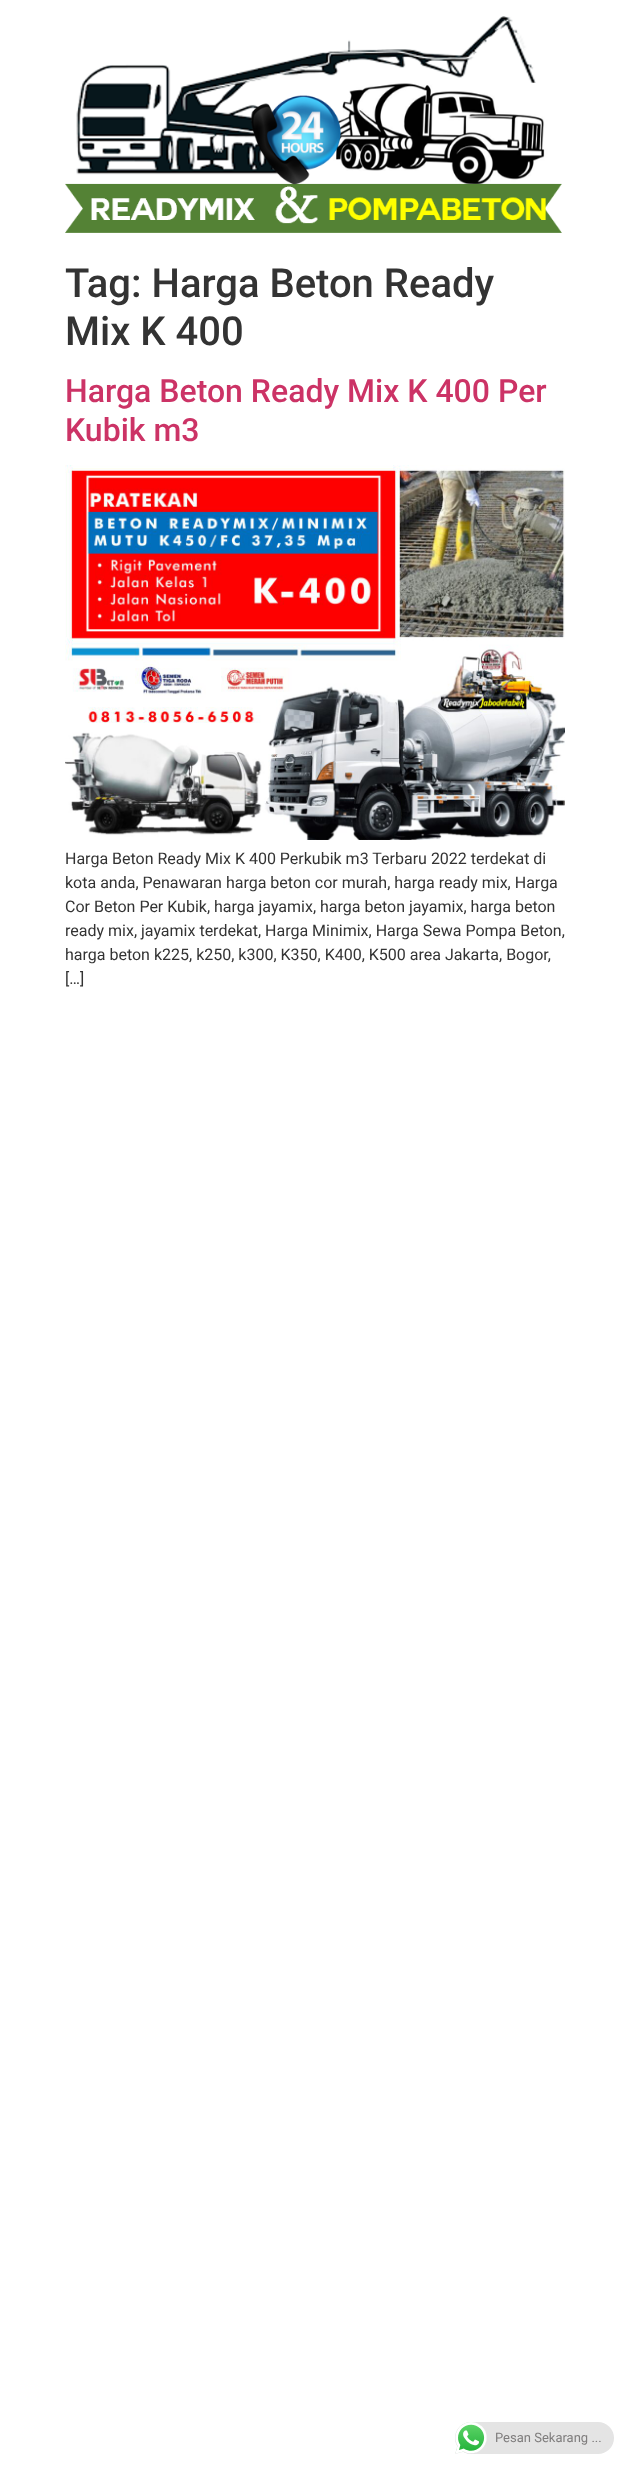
(async () => {
    const canvas = document.querySelector("canvas");
    canvas.width = 629;
    canvas.height = 2469;
    const context = canvas.getContext("2d");
    context.miterLimit = 4;
    context.fontKerning = "normal";
    function write(s, x, y, font, color) {
        context.font = font;
        context.fillStyle = color;
        context.fillText(s, x, y);
    }
    function block(x, y, w, h, color) {
        context.fillStyle = color;
        context.fillRect(x, y, w, h);
    }
    function card(x, y, w, h, r, color) {
        context.fillStyle = color;
        context.beginPath();
        context.roundRect(x, y, w, h, r);
        context.fill();
    }
    async function photo(src, x, y, w, h) {
        const img = new Image();
        img.src = src;
        await img.decode();
        context.drawImage(img, x, y, w, h);
    }

    block(0, 0, 629, 2469, "rgb(255, 255, 255)");
    await photo("media/1.png", 65, 16, 497, 217);
    write("Tag: Harga Beton Ready", 65, 297, "500 40px Roboto", "rgb(51, 51, 51)");
    write("Mix K 400", 65, 345, "500 40px Roboto", "rgb(51, 51, 51)");
    write("Harga Beton Ready Mix K 400 Per", 65, 402, "500 32px Roboto", "rgb(204, 51, 102)");
    write("Kubik m3", 65, 441, "500 32px Roboto", "rgb(204, 51, 102)");
    await photo("media/2.png", 65, 465, 500, 375);
    write("Harga Beton Ready Mix K 400 Perkubik m3 Terbaru 2022 terdekat di", 65, 864, "16px Roboto", "rgb(51, 51, 51)");
    write("kota anda, Penawaran harga beton cor murah, harga ready mix, Harga", 65, 888, "16px Roboto", "rgb(51, 51, 51)");
    write("Cor Beton Per Kubik, harga jayamix, harga beton jayamix, harga beton", 65, 912, "16px Roboto", "rgb(51, 51, 51)");
    write("ready mix, jayamix terdekat, Harga Minimix, Harga Sewa Pompa Beton,", 65, 936, "16px Roboto", "rgb(51, 51, 51)");
    write("harga beton k225, k250, k300, K350, K400, K500 area Jakarta, Bogor,", 65, 960, "16px Roboto", "rgb(51, 51, 51)");
    write("[…]", 65, 984, "16px Roboto", "rgb(51, 51, 51)");
    card(455, 2422, 159, 32, 16, "rgb(228, 228, 228)");
    await photo("media/3.png", 455, 2422, 32, 32);
    write("Pesan Sekarang ...", 495, 2442, "13px Roboto", "rgb(127, 125, 125)");
})();
